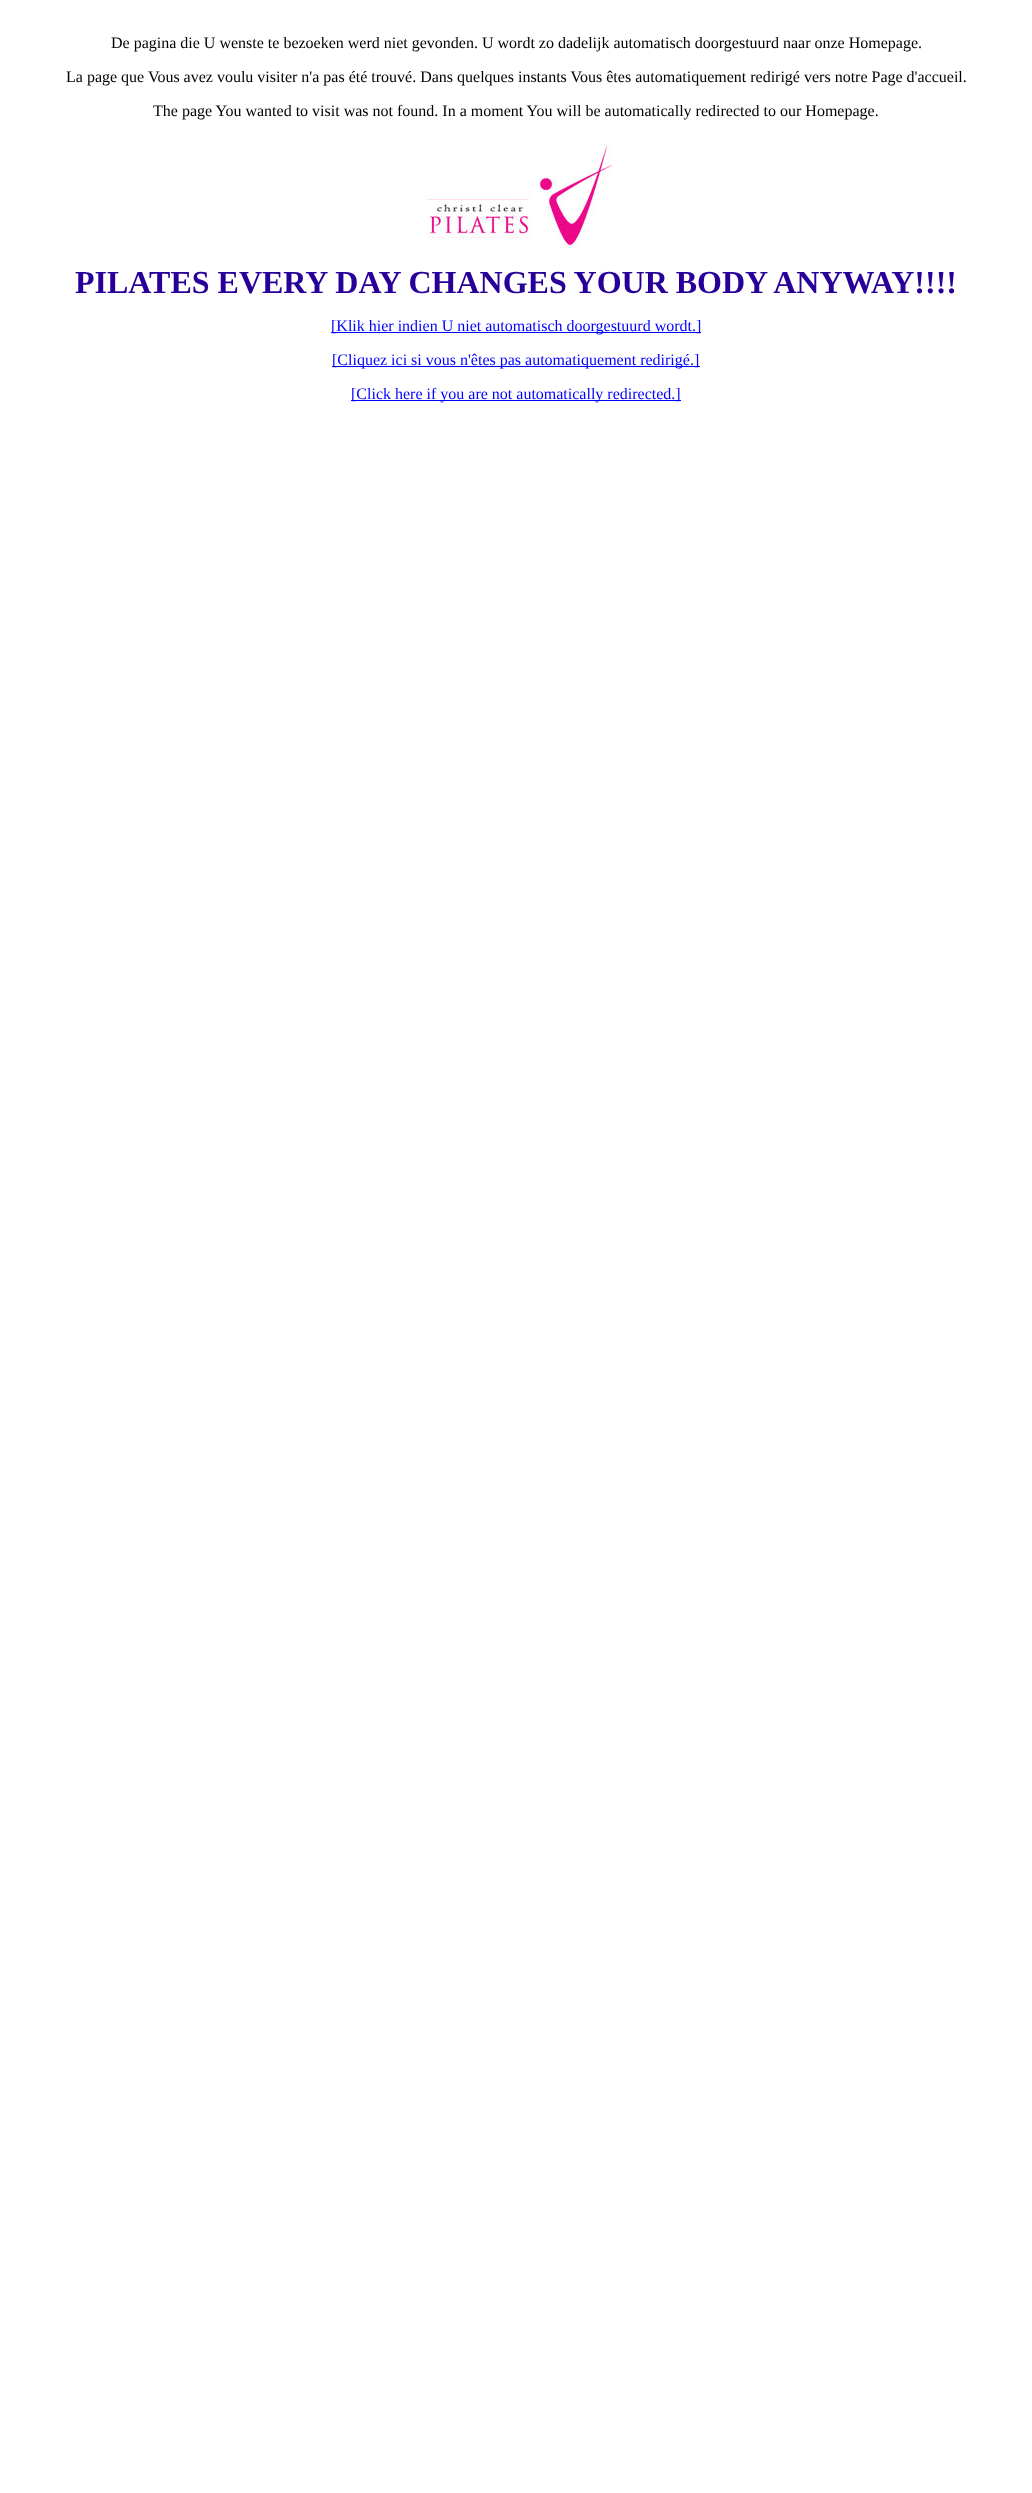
(async () => {
    const canvas = document.querySelector("canvas");
    canvas.width = 1032;
    canvas.height = 2493;
    const context = canvas.getContext("2d");
    context.miterLimit = 4;
    context.fontKerning = "normal";
    function write(s, x, y, font, color) {
        context.font = font;
        context.fillStyle = color;
        context.fillText(s, x, y);
    }
    function block(x, y, w, h, color) {
        context.fillStyle = color;
        context.fillRect(x, y, w, h);
    }
    async function photo(src, x, y, w, h) {
        const img = new Image();
        img.src = src;
        await img.decode();
        context.drawImage(img, x, y, w, h);
    }

    block(0, 0, 1032, 2493, "rgb(255, 255, 255)");
    write("De pagina die U wenste te bezoeken werd niet gevonden. U wordt zo dadelijk automatisch doorgestuurd naar onze Homepage.", 111, 48, "16px Liberation Serif", "rgb(0, 0, 0)");
    write("La page que Vous avez voulu visiter n'a pas été trouvé. Dans quelques instants Vous êtes automatiquement redirigé vers notre Page d'accueil.", 66, 82, "16px Liberation Serif", "rgb(0, 0, 0)");
    write("The page You wanted to visit was not found. In a moment You will be automatically redirected to our Homepage.", 153, 116, "16px Liberation Serif", "rgb(0, 0, 0)");
    await photo("media/1.png", 426, 144, 186, 104);
    write("PILATES EVERY DAY CHANGES YOUR BODY ANYWAY!!!!", 75, 293, "bold 32px Liberation Serif", "rgb(40, 0, 153)");
    block(331, 332, 370, 1, "rgb(0, 0, 255)");
    write("[Klik hier indien U niet automatisch doorgestuurd wordt.]", 331, 331, "16px Liberation Serif", "rgb(0, 0, 255)");
    block(332, 366, 368, 1, "rgb(0, 0, 255)");
    write("[Cliquez ici si vous n'êtes pas automatiquement redirigé.]", 332, 365, "16px Liberation Serif", "rgb(0, 0, 255)");
    block(351, 400, 330, 1, "rgb(0, 0, 255)");
    write("[Click here if you are not automatically redirected.]", 351, 399, "16px Liberation Serif", "rgb(0, 0, 255)");
})();
